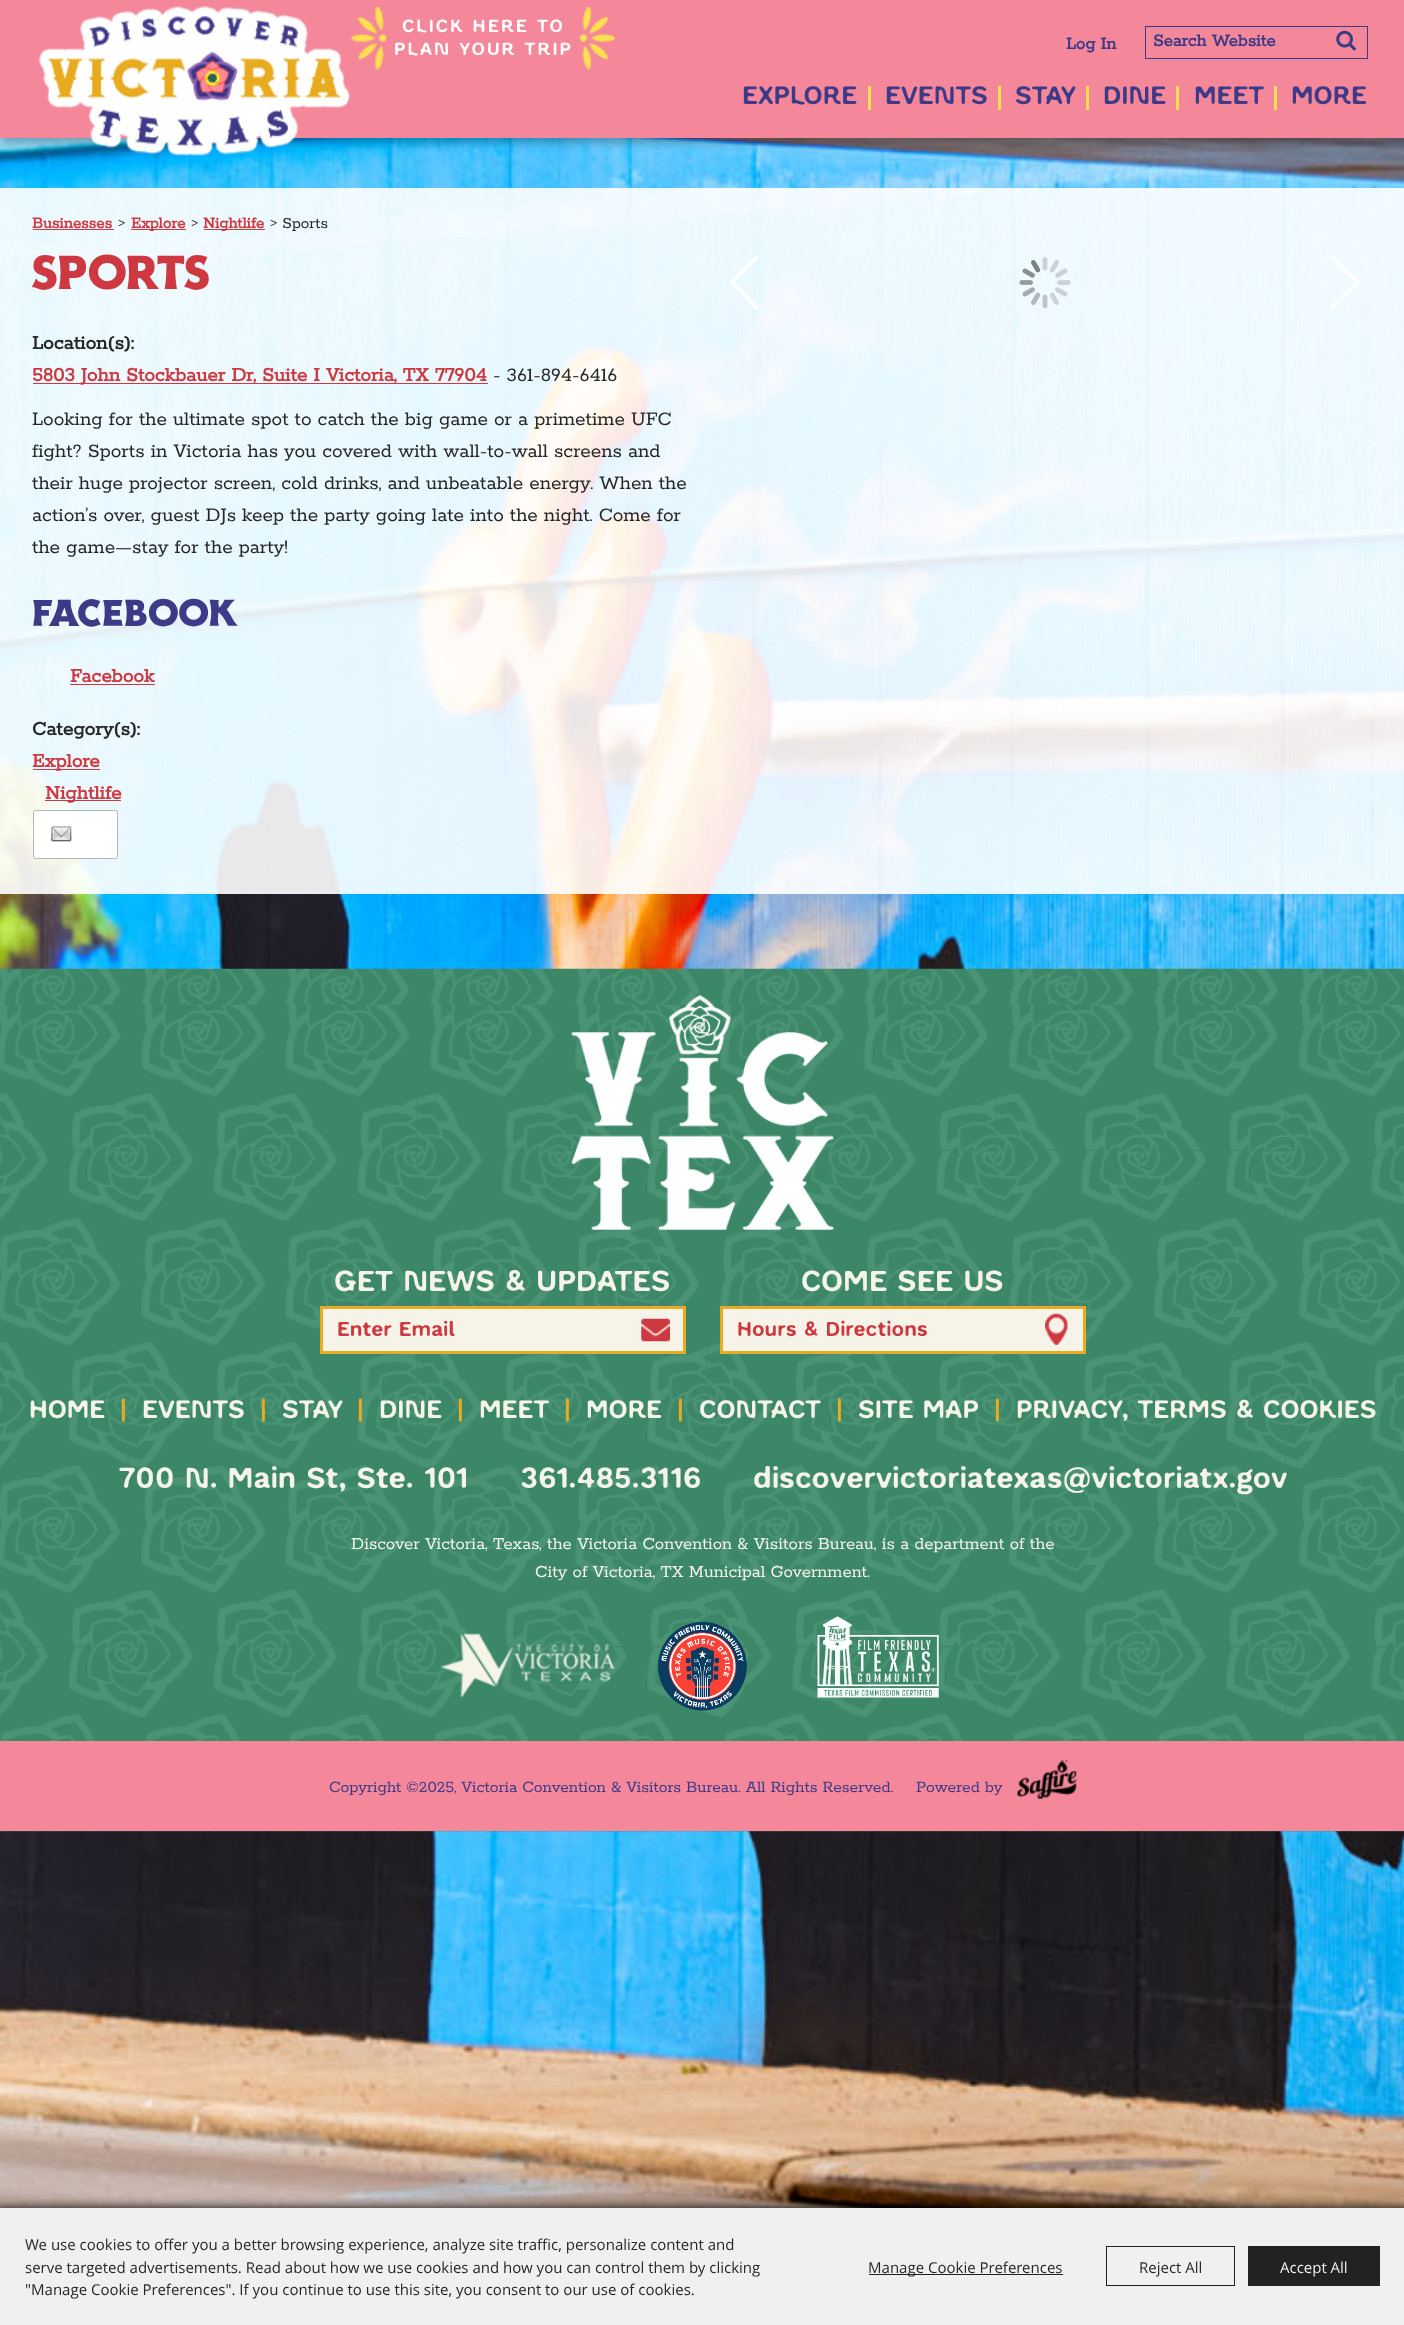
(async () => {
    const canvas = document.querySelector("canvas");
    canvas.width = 1404;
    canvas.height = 2325;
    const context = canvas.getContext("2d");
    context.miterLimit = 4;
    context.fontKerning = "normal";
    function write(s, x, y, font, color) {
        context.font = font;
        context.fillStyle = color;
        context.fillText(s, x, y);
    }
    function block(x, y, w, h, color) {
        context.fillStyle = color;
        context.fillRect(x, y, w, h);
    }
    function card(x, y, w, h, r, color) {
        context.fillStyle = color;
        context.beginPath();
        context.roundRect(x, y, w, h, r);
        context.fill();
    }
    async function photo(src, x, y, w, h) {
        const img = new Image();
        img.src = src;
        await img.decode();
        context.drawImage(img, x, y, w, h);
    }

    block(0, 0, 1404, 2325, "rgb(255, 255, 255)");
    await photo("media/1.png", 0, 138, 1404, 2070);
    context.fillStyle = "rgba(0, 0, 0, 0.27)";
    context.filter = "blur(4px)";
    context.beginPath();
    context.rect(1, 0, 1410, 143);
    context.fill();
    context.filter = "none";
    block(0, 0, 1404, 138, "rgb(244, 135, 153)");
    await photo("media/2.png", 38, 6, 312, 151);
    await photo("media/3.png", 351, 6, 36, 64);
    context.letterSpacing = "2px";
    write("CLICK HERE TO", 402, 32, "17.5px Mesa", "rgb(255, 255, 255)");
    write("PLAN YOUR TRIP", 394, 55, "17.5px Mesa", "rgb(255, 255, 255)");
    await photo("media/4.png", 580, 6, 36, 64);
    context.letterSpacing = "0px";
    write("Log In", 1066, 49, "bold 18.75px ROKKITT", "rgb(61, 58, 136)");
    context.strokeStyle = "rgb(61, 58, 136)";
    context.strokeRect(1145.5, 26.5, 222, 32);
    write("Search Website", 1153, 46, "bold 18.75px ROKKITT", "rgb(61, 58, 136)");
    await photo("media/5.png", 1336, 30, 20, 21);
    write("EXPLORE", 742, 104, "25px Mesa", "rgb(61, 58, 136)");
    block(868, 86, 3, 24, "rgb(255, 222, 79)");
    write("EVENTS", 885, 104, "25px Mesa", "rgb(61, 58, 136)");
    block(998, 86, 3, 24, "rgb(255, 222, 79)");
    write("STAY", 1015, 104, "25px Mesa", "rgb(61, 58, 136)");
    block(1086, 86, 3, 24, "rgb(255, 222, 79)");
    write("DINE", 1103, 104, "25px Mesa", "rgb(61, 58, 136)");
    block(1176, 86, 3, 24, "rgb(255, 222, 79)");
    write("MEET", 1194, 104, "25px Mesa", "rgb(61, 58, 136)");
    block(1274, 86, 3, 24, "rgb(255, 222, 79)");
    write("MORE", 1291, 104, "25px Mesa", "rgb(61, 58, 136)");
    block(0, 188, 1404, 706, "rgba(255, 255, 255, 0.9)");
    write("Businesses", 32, 228, "bold 17px ROKKITT", "rgb(206, 57, 65)");
    block(33, 229, 81, 1, "rgb(206, 57, 65)");
    write(">", 118, 228, "17px ROKKITT", "rgb(39, 39, 39)");
    block(131, 229, 55, 1, "rgb(206, 57, 65)");
    write("Explore", 131, 228, "bold 17px ROKKITT", "rgb(206, 57, 65)");
    write(">", 191, 228, "17px ROKKITT", "rgb(39, 39, 39)");
    block(204, 229, 61, 1, "rgb(206, 57, 65)");
    write("Nightlife", 203, 228, "bold 17px ROKKITT", "rgb(206, 57, 65)");
    write("> Sports", 270, 228, "17px ROKKITT", "rgb(39, 39, 39)");
    write("SPORTS", 32, 289, "47.5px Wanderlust", "rgb(206, 57, 65)");
    write("Location(s):", 32, 349, "bold 21.25px ROKKITT", "rgb(39, 39, 39)");
    block(33, 383, 455, 1, "rgb(206, 57, 65)");
    write("5803 John Stockbauer Dr, Suite I Victoria, TX 77904", 32, 381, "bold 21.25px ROKKITT", "rgb(206, 57, 65)");
    write("- 361-894-6416", 493, 381, "21.25px ROKKITT", "rgb(39, 39, 39)");
    write("Looking for the ultimate spot to catch the big game or a primetime UFC", 32, 425, "21.25px ROKKITT", "rgb(39, 39, 39)");
    write("fight? Sports in Victoria has you covered with wall-to-wall screens and", 32, 457, "21.25px ROKKITT", "rgb(39, 39, 39)");
    write("their huge projector screen, cold drinks, and unbeatable energy. When the", 32, 489, "21.25px ROKKITT", "rgb(39, 39, 39)");
    write("action’s over, guest DJs keep the party going late into the night. Come for", 32, 521, "21.25px ROKKITT", "rgb(39, 39, 39)");
    write("the game—stay for the party!", 32, 553, "21.25px ROKKITT", "rgb(39, 39, 39)");
    write("FACEBOOK", 32, 626, "37.5px Wanderlust", "rgb(61, 58, 136)");
    write("Facebook", 70, 682, "bold 21.25px ROKKITT", "rgb(206, 57, 65)");
    block(70, 684, 85, 1, "rgb(206, 57, 65)");
    write("Category(s):", 32, 735, "bold 21.25px ROKKITT", "rgb(39, 39, 39)");
    block(33, 769, 67, 1, "rgb(206, 57, 65)");
    write("Explore", 32, 767, "bold 21.25px ROKKITT", "rgb(206, 57, 65)");
    block(45, 800, 76, 1, "rgb(206, 57, 65)");
    write("Nightlife", 45, 799, "bold 21.25px ROKKITT", "rgb(206, 57, 65)");
    card(33, 810, 85, 49, 2.5, "rgb(255, 255, 255)");
    context.beginPath();
    context.roundRect(33.5, 810.5, 84, 48, 2);
    context.strokeStyle = "rgba(129, 129, 129, 0.58)";
    context.stroke();
    await photo("media/6.png", 51, 826, 21, 16);
    context.beginPath();
    context.moveTo(729, 282);
    context.lineTo(756, 255);
    context.lineTo(759, 258);
    context.lineTo(734, 282);
    context.lineTo(759, 307);
    context.lineTo(756, 310);
    context.closePath();
    context.fill();
    await photo("media/7.png", 1019, 257, 52, 51);
    context.beginPath();
    context.moveTo(1360, 282);
    context.lineTo(1332, 310);
    context.lineTo(1330, 307);
    context.lineTo(1355, 282);
    context.lineTo(1330, 258);
    context.lineTo(1332, 255);
    context.closePath();
    context.fill();
    await photo("media/8.png", 0, 968, 1404, 864);
    await photo("media/9.png", 571, 995, 263, 235);
    write("GET NEWS & UPDATES", 334, 1291, "28.75px Mesa", "rgb(246, 244, 232)");
    context.beginPath();
    context.rect(321.5, 1307.5, 363, 45);
    context.fill();
    context.strokeStyle = "rgb(232, 171, 34)";
    context.lineWidth = 3;
    context.stroke();
    context.save();
    context.beginPath();
    context.rect(338, 1321, 302, 19);
    context.clip();
    write("Enter Email", 337, 1336, "20px Mesa", "rgb(206, 57, 65)");
    context.restore();
    await photo("media/10.png", 641, 1318, 29, 24);
    write("COME SEE US", 801, 1291, "28.75px Mesa", "rgb(246, 244, 232)");
    context.beginPath();
    context.rect(721.5, 1307.5, 363, 45);
    context.fill();
    context.stroke();
    write("Hours & Directions", 737, 1336, "20px Mesa", "rgb(206, 57, 65)");
    await photo("media/11.png", 1045, 1313, 23, 32);
    write("HOME", 29, 1418, "25px Mesa", "rgb(246, 244, 232)");
    write("|", 120, 1418, "25px Mesa", "rgb(232, 171, 34)");
    write("EVENTS", 142, 1418, "25px Mesa", "rgb(246, 244, 232)");
    write("|", 260, 1418, "25px Mesa", "rgb(232, 171, 34)");
    write("STAY", 282, 1418, "25px Mesa", "rgb(246, 244, 232)");
    write("|", 357, 1418, "25px Mesa", "rgb(232, 171, 34)");
    write("DINE", 379, 1418, "25px Mesa", "rgb(246, 244, 232)");
    write("|", 457, 1418, "25px Mesa", "rgb(232, 171, 34)");
    write("MEET", 479, 1418, "25px Mesa", "rgb(246, 244, 232)");
    write("|", 564, 1418, "25px Mesa", "rgb(232, 171, 34)");
    write("MORE", 586, 1418, "25px Mesa", "rgb(246, 244, 232)");
    write("|", 677, 1418, "25px Mesa", "rgb(232, 171, 34)");
    write("CONTACT", 699, 1418, "25px Mesa", "rgb(246, 244, 232)");
    write("|", 836, 1418, "25px Mesa", "rgb(232, 171, 34)");
    write("SITE MAP", 858, 1418, "25px Mesa", "rgb(246, 244, 232)");
    write("|", 994, 1418, "25px Mesa", "rgb(232, 171, 34)");
    write("PRIVACY, TERMS & COOKIES", 1016, 1418, "25px Mesa", "rgb(246, 244, 232)");
    write("700 N. Main St, Ste. 101", 118, 1488, "28.75px Mesa", "rgb(246, 244, 232)");
    write("361.485.3116", 520, 1488, "28.75px Mesa", "rgb(246, 244, 232)");
    write("discovervictoriatexas@victoriatx.gov", 753, 1488, "28.75px Mesa", "rgb(246, 244, 232)");
    write("Discover Victoria, Texas, the Victoria Convention & Visitors Bureau, is a department of the", 351, 1549, "18.75px ROKKITT", "rgb(246, 244, 232)");
    write("City of Victoria, TX Municipal Government.", 535, 1577, "18.75px ROKKITT", "rgb(246, 244, 232)");
    await photo("media/12.png", 441, 1633, 174, 65);
    await photo("media/13.png", 658, 1621, 89, 90);
    await photo("media/14.png", 817, 1616, 122, 82);
    block(0, 1741, 1404, 90, "rgb(244, 135, 153)");
    write("Copyright ©2025, Victoria Convention & Visitors Bureau. All Rights Reserved.", 329, 1792, "17.5px ROKKITT", "rgb(61, 58, 136)");
    write("Powered by", 916, 1792, "17.5px ROKKITT", "rgb(61, 58, 136)");
    await photo("media/15.png", 1017, 1760, 60, 39);
    context.fillStyle = "rgb(0, 0, 0)";
    context.filter = "blur(6px)";
    context.beginPath();
    context.rect(-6, 2208, 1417, 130);
    context.fill();
    context.filter = "none";
    block(0, 2208, 1404, 117, "rgb(240, 240, 240)");
    write("We use cookies to offer you a better browsing experience, analyze site traffic, personalize content and", 25, 2250, "15px Open Sans", "rgb(39, 39, 39)");
    write("serve targeted advertisements. Read about how we use cookies and how you can control them by clicking", 25, 2273, "15px Open Sans", "rgb(39, 39, 39)");
    write("\"Manage Cookie Preferences\". If you continue to use this site, you consent to our use of cookies.", 25, 2295, "15px Open Sans", "rgb(39, 39, 39)");
    block(869, 2274, 194, 1, "rgb(34, 34, 34)");
    write("Manage Cookie Preferences", 868, 2273, "15px Open Sans", "rgb(39, 39, 39)");
    context.strokeStyle = "rgb(34, 34, 34)";
    context.lineWidth = 1;
    context.strokeRect(1106.5, 2246.5, 128, 39);
    write("Reject All", 1139, 2273, "15px Open Sans", "rgb(39, 39, 39)");
    block(1248, 2246, 132, 40, "rgb(34, 34, 34)");
    write("Accept All", 1280, 2273, "15px Open Sans", "rgb(240, 240, 240)");
})();
